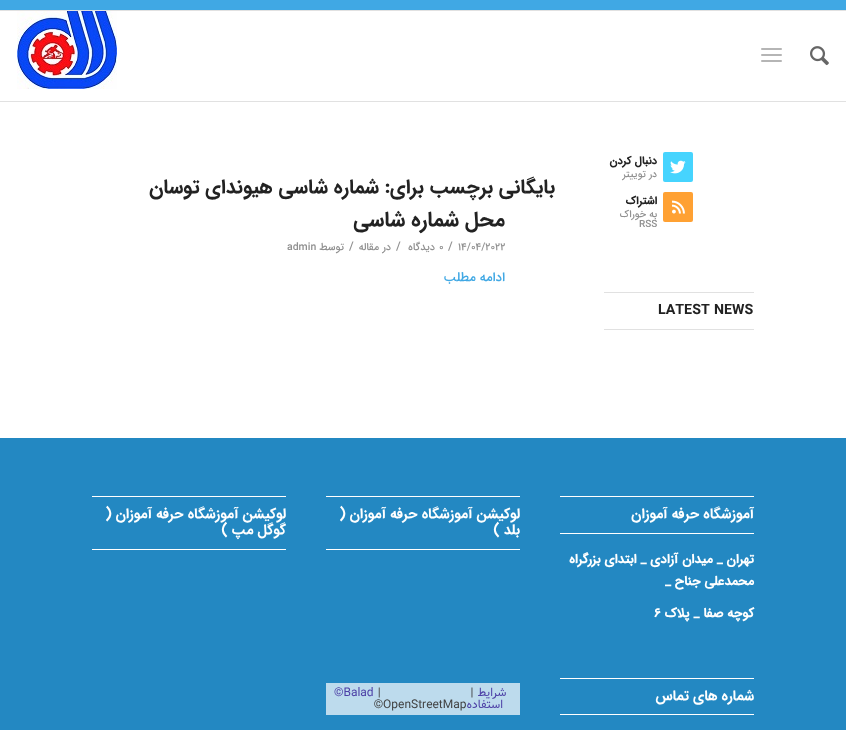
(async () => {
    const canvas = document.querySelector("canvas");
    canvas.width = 846;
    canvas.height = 730;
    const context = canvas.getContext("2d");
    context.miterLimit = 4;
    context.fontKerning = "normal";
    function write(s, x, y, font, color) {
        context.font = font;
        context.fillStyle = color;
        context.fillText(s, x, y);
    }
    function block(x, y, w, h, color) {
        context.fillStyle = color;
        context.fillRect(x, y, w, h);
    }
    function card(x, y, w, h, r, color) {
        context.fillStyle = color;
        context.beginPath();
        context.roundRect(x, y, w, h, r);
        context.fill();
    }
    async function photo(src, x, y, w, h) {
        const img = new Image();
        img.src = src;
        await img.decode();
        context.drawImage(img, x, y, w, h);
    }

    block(0, 0, 846, 730, "rgb(255, 255, 255)");
    block(0, 0, 846, 10, "rgb(64, 168, 228)");
    block(0, 10, 846, 1, "rgb(225, 225, 225)");
    block(0, 101, 846, 1, "rgb(225, 225, 225)");
    await photo("media/1.png", 810, 46, 19, 20);
    card(761, 54, 21, 2, 1, "rgb(181, 181, 181)");
    card(761, 48, 21, 2, 1, "rgb(181, 181, 181)");
    card(761, 60, 21, 2, 1, "rgb(181, 181, 181)");
    await photo("media/2.png", 17, 11, 100, 78);
    card(663, 152, 30, 30, 2, "rgb(70, 212, 254)");
    await photo("media/3.png", 670, 160, 16, 14);
    context.direction = "rtl";
    write("دنبال کردن", 657, 164, "bold 11px 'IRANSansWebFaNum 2'", "rgb(34, 34, 34)");
    write("در توییتر", 657, 177, "500 10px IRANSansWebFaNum", "rgb(145, 145, 145)");
    card(663, 192, 30, 30, 2, "rgb(255, 161, 51)");
    await photo("media/4.png", 672, 200, 13, 14);
    write("اشتراک", 657, 204, "bold 11px 'IRANSansWebFaNum 2'", "rgb(34, 34, 34)");
    write("به خوراک", 657, 217, "500 10px IRANSansWebFaNum", "rgb(145, 145, 145)");
    context.direction = "ltr";
    write("RSS", 639, 227, "500 10px IRANSansWebFaNum", "rgb(145, 145, 145)");
    block(604, 292, 150, 1, "rgb(225, 225, 225)");
    block(604, 329, 150, 1, "rgb(225, 225, 225)");
    write("LATEST NEWS", 658, 314, "bold 14.25px IRANSansWebFaNum", "rgb(34, 34, 34)");
    context.direction = "rtl";
    write("بایگانی برچسب برای:", 555, 193, "bold 20px IRANSansWebFaNum", "rgb(34, 34, 34)");
    write("شماره شاسی هیوندای توسان", 379, 193, "bold 20px IRANSansWebFaNum", "rgb(34, 34, 34)");
    write("محل شماره شاسی", 505, 226, "bold 21px IRANSansWebFaNum", "rgb(34, 34, 34)");
    context.direction = "ltr";
    write("14/04/2022", 458, 250, "500 10.5px IRANSansWebFaNum", "rgb(145, 145, 145)");
    write("/", 448, 250, "500 12px IRANSansWebFaNum", "rgb(145, 145, 145)");
    write("0", 439, 250, "500 10.5px IRANSansWebFaNum", "rgb(145, 145, 145)");
    context.direction = "rtl";
    write("دیدگاه", 435, 250, "500 10.5px IRANSansWebFaNum", "rgb(145, 145, 145)");
    context.direction = "ltr";
    write("/", 396, 250, "500 12px IRANSansWebFaNum", "rgb(145, 145, 145)");
    context.direction = "rtl";
    write("در", 391, 250, "500 10.5px IRANSansWebFaNum", "rgb(145, 145, 145)");
    write("مقاله", 379, 250, "500 10.5px IRANSansWebFaNum", "rgb(145, 145, 145)");
    context.direction = "ltr";
    write("/", 349, 250, "500 12px IRANSansWebFaNum", "rgb(145, 145, 145)");
    context.direction = "rtl";
    write("توسط", 344, 250, "500 10.5px IRANSansWebFaNum", "rgb(145, 145, 145)");
    context.direction = "ltr";
    write("admin", 287, 250, "500 10.5px IRANSansWebFaNum", "rgb(145, 145, 145)");
    context.direction = "rtl";
    write("ادامه مطلب", 505, 281, "500 13px IRANSansWebFaNum", "rgb(64, 168, 228)");
    block(0, 438, 846, 292, "rgb(35, 136, 194)");
    block(560, 496, 194, 1, "rgb(255, 255, 255)");
    block(560, 533, 194, 1, "rgb(255, 255, 255)");
    write("آموزشگاه حرفه آموزان", 754, 518, "bold 14.25px IRANSansWebFaNum", "rgb(255, 255, 255)");
    write("تهران _ میدان آزادی _ ابتدای بزرگراه", 754, 563, "bold 13px 'IRANSansWebFaNum 2'", "rgb(255, 255, 255)");
    write("محمدعلی جناح _", 754, 585, "bold 13px 'IRANSansWebFaNum 2'", "rgb(255, 255, 255)");
    write("کوچه صفا _ پلاک", 754, 617, "bold 13px 'IRANSansWebFaNum 2'", "rgb(255, 255, 255)");
    context.direction = "ltr";
    write("6", 654, 617, "bold 13px 'IRANSansWebFaNum 2'", "rgb(255, 255, 255)");
    block(560, 678, 194, 1, "rgb(255, 255, 255)");
    block(560, 714, 194, 1, "rgb(255, 255, 255)");
    context.direction = "rtl";
    write("شماره های تماس", 754, 700, "bold 14.25px IRANSansWebFaNum", "rgb(255, 255, 255)");
    block(326, 496, 194, 1, "rgb(255, 255, 255)");
    block(326, 549, 194, 1, "rgb(255, 255, 255)");
    write("لوکیشن آموزشگاه حرفه آموزان (", 520, 518, "bold 14.25px IRANSansWebFaNum", "rgb(255, 255, 255)");
    write("بلد )", 520, 534, "bold 14.25px IRANSansWebFaNum", "rgb(255, 255, 255)");
    await photo("media/5.png", 326, 683, 194, 32);
    block(92, 496, 194, 1, "rgb(255, 255, 255)");
    block(92, 549, 194, 1, "rgb(255, 255, 255)");
    write("لوکیشن آموزشگاه حرفه آموزان (", 286, 518, "bold 14.25px IRANSansWebFaNum", "rgb(255, 255, 255)");
    write("گوگل مپ )", 286, 534, "bold 14.25px IRANSansWebFaNum", "rgb(255, 255, 255)");
})();
